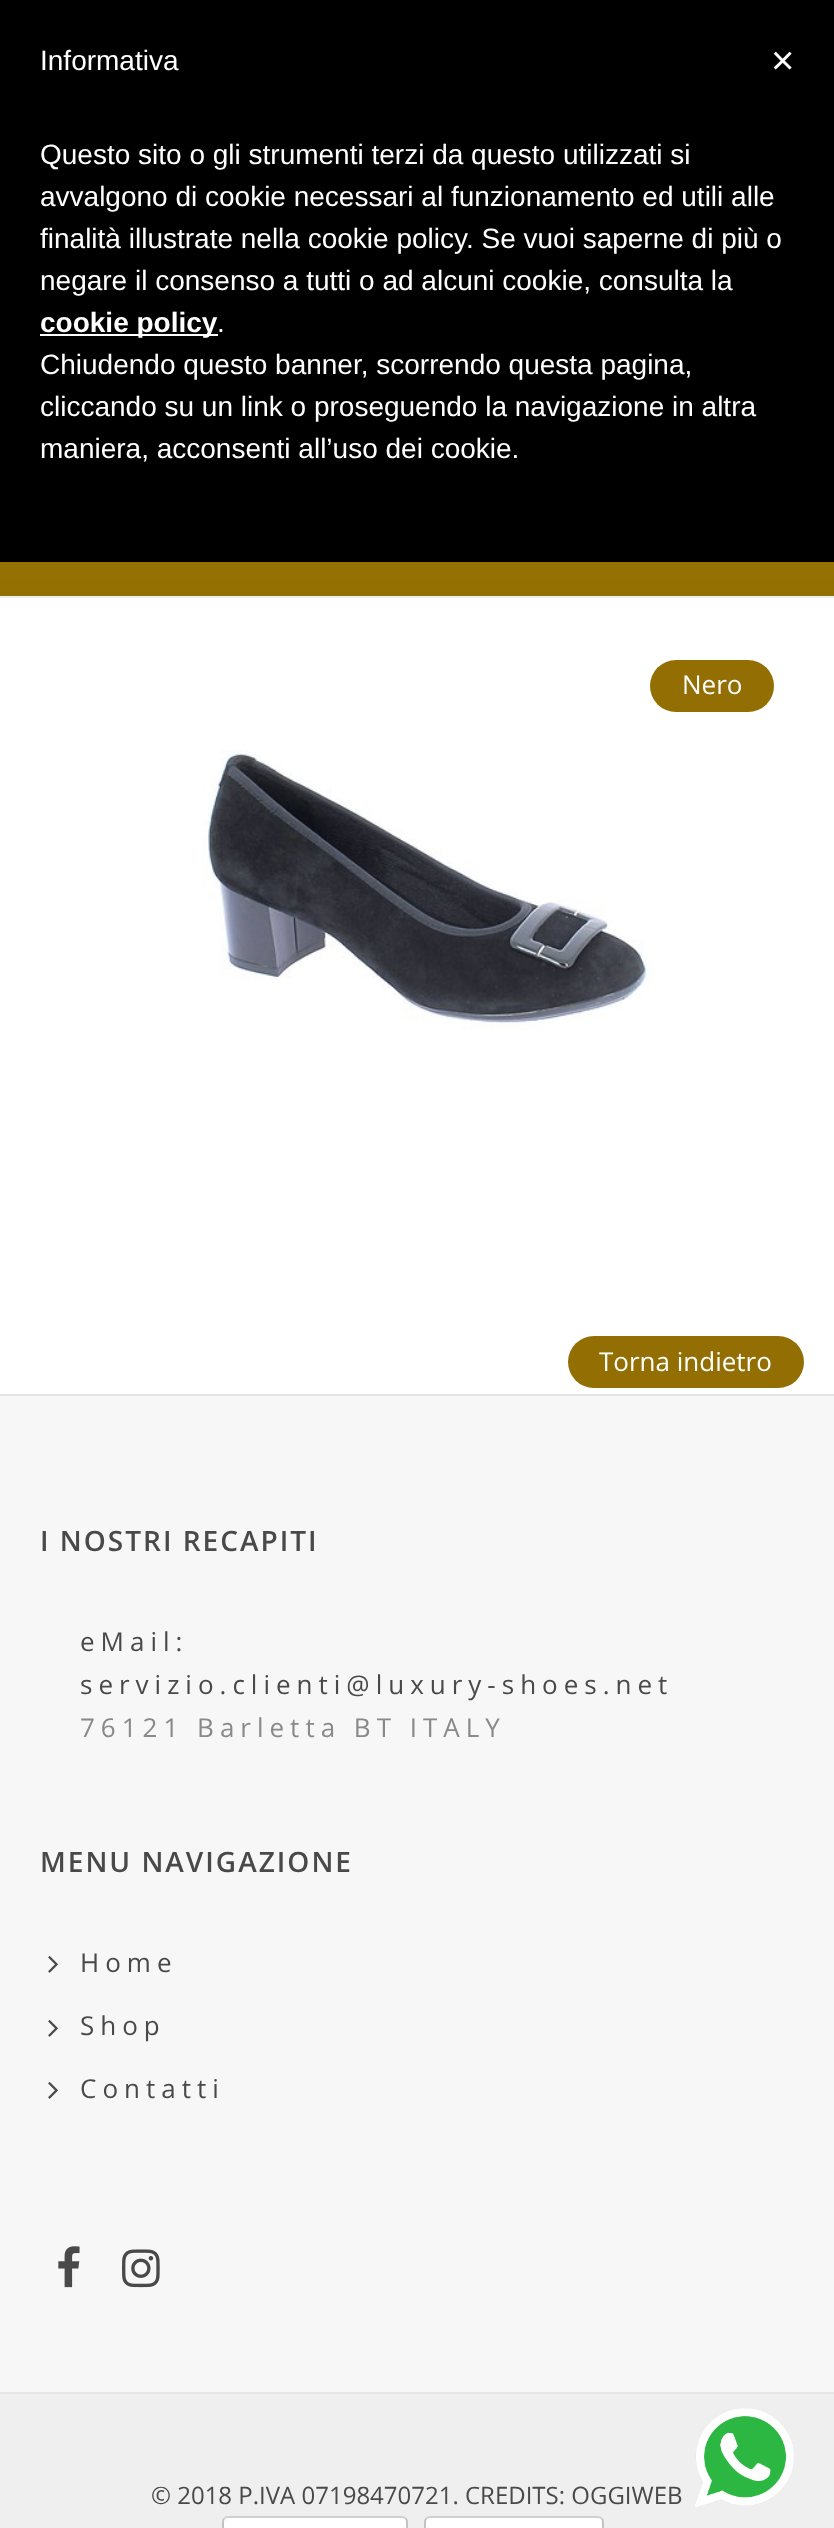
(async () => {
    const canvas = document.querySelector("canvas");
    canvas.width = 834;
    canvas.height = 2528;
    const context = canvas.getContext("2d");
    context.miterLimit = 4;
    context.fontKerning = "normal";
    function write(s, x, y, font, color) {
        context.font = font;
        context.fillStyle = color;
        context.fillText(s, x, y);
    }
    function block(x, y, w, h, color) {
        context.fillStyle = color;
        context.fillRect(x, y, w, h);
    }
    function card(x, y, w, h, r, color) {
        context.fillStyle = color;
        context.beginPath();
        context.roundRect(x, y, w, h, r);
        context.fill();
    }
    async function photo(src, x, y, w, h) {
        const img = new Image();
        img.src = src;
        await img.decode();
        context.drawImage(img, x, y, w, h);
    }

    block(0, 0, 834, 2528, "rgb(255, 255, 255)");
    block(0, 0, 834, 562, "rgb(0, 0, 0)");
    write("Informativa", 40, 70, "28px Liberation Sans", "rgb(255, 255, 255)");
    write("Questo sito o gli strumenti terzi da questo utilizzati si", 40, 164, "28px Liberation Sans", "rgb(255, 255, 255)");
    write("avvalgono di cookie necessari al funzionamento ed utili alle", 40, 206, "28px Liberation Sans", "rgb(255, 255, 255)");
    write("finalità illustrate nella cookie policy. Se vuoi saperne di più o", 40, 248, "28px Liberation Sans", "rgb(255, 255, 255)");
    write("negare il consenso a tutti o ad alcuni cookie, consulta la", 40, 290, "28px Liberation Sans", "rgb(255, 255, 255)");
    block(40, 334, 178, 2, "rgb(255, 255, 255)");
    write("cookie policy", 40, 332, "bold 28px Liberation Sans", "rgb(255, 255, 255)");
    write(".", 217, 332, "28px Liberation Sans", "rgb(255, 255, 255)");
    write("Chiudendo questo banner, scorrendo questa pagina,", 40, 374, "28px Liberation Sans", "rgb(255, 255, 255)");
    write("cliccando su un link o proseguendo la navigazione in altra", 40, 416, "28px Liberation Sans", "rgb(255, 255, 255)");
    write("maniera, acconsenti all’uso dei cookie.", 40, 458, "28px Liberation Sans", "rgb(255, 255, 255)");
    write("×", 771, 74, "40px Liberation Sans", "rgb(255, 255, 255)");
    block(0, 596, 834, 2, "rgb(238, 238, 238)");
    await photo("media/1.png", 0, 562, 834, 34);
    card(650, 660, 124, 52, 26, "rgb(147, 111, 3)");
    write("Nero", 682, 694, "26px Open Sans", "rgb(255, 255, 255)");
    await photo("media/2.png", 202, 750, 452, 280);
    card(568, 1336, 236, 52, 26, "rgb(147, 111, 3)");
    write("Torna indietro", 599, 1371, "26px Open Sans", "rgb(255, 255, 255)");
    block(0, 1396, 834, 996, "rgb(247, 247, 247)");
    block(0, 1394, 834, 2, "rgb(229, 229, 229)");
    context.letterSpacing = "2px";
    write("I NOSTRI RECAPITI", 40, 1551, "600 28px Open Sans", "rgb(73, 73, 73)");
    context.letterSpacing = "6px";
    write("eMail:", 80, 1651, "26px Open Sans", "rgb(73, 73, 73)");
    write("servizio.clienti@luxury-shoes.net", 80, 1694, "26px Open Sans", "rgb(73, 73, 73)");
    write("76121 Barletta BT ITALY", 80, 1737, "26px Open Sans", "rgb(137, 137, 137)");
    context.letterSpacing = "2px";
    write("MENU NAVIGAZIONE", 40, 1872, "600 28px Open Sans", "rgb(73, 73, 73)");
    await photo("media/3.png", 48, 1956, 10, 17);
    context.letterSpacing = "6px";
    write("Home", 80, 1972, "26px Open Sans", "rgb(73, 73, 73)");
    await photo("media/3.png", 48, 2020, 10, 17);
    write("Shop", 80, 2035, "26px Open Sans", "rgb(73, 73, 73)");
    await photo("media/3.png", 48, 2082, 10, 17);
    write("Contatti", 80, 2098, "26px Open Sans", "rgb(73, 73, 73)");
    await photo("media/4.png", 58, 2246, 22, 42);
    await photo("media/5.png", 122, 2249, 38, 39);
    block(0, 2394, 834, 134, "rgb(239, 239, 239)");
    block(0, 2392, 834, 2, "rgb(229, 229, 229)");
    context.letterSpacing = "0px";
    write("© 2018 P.IVA 07198470721. CREDITS: OGGIWEB", 151, 2504, "24px Open Sans", "rgb(73, 73, 73)");
    await photo("media/6.png", 222, 2516, 186, 12);
    await photo("media/7.png", 424, 2516, 180, 12);
    await photo("media/8.png", 695, 2408, 99, 99);
})();
